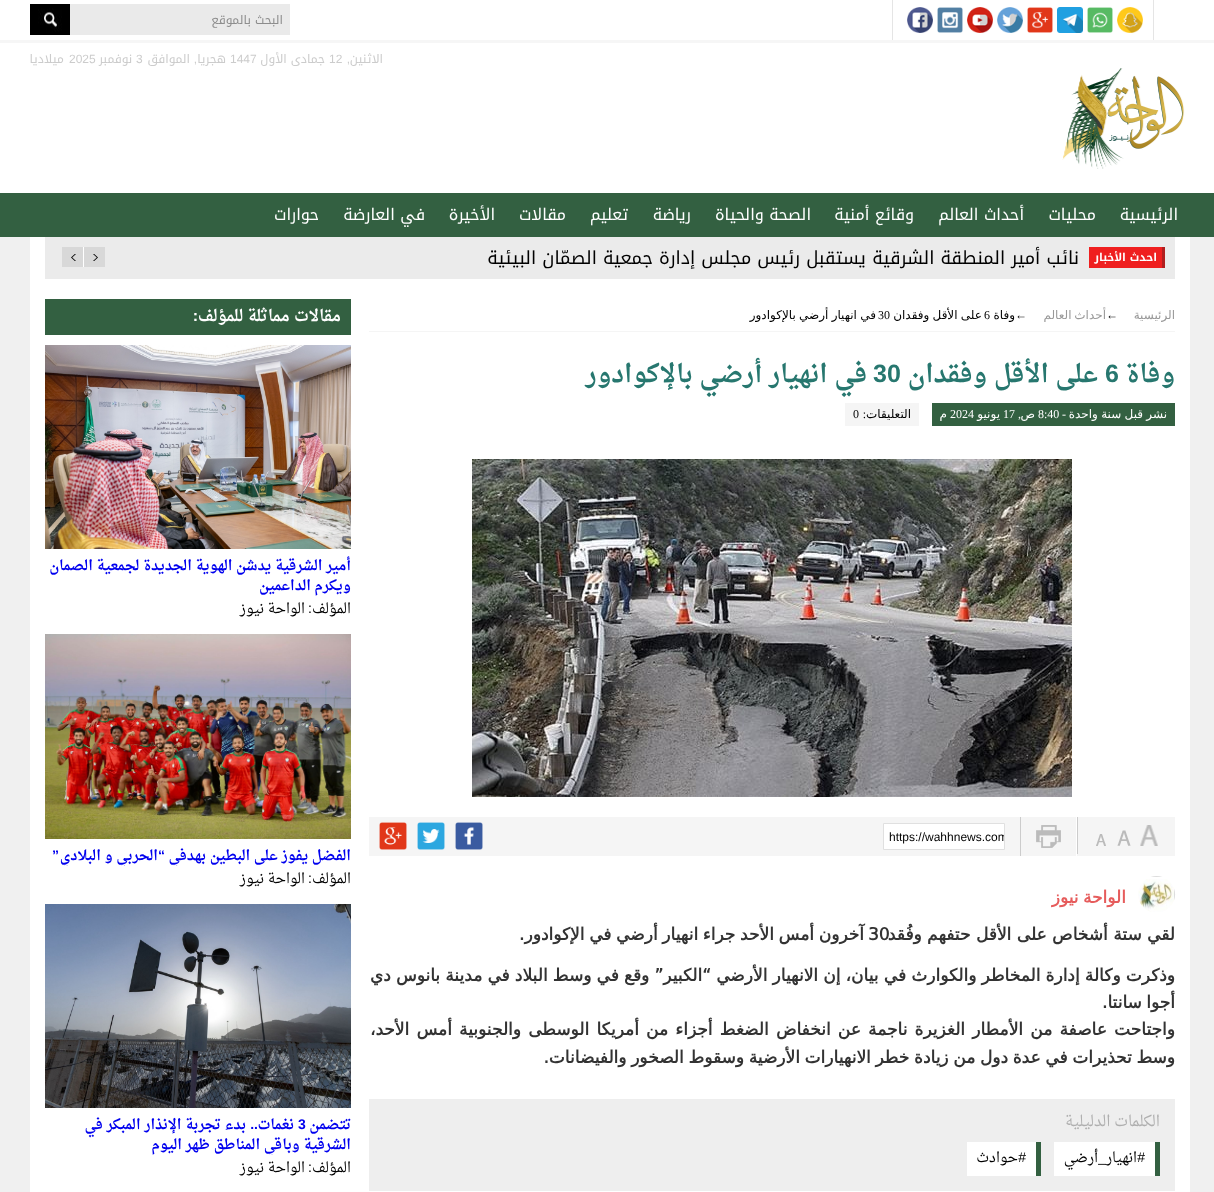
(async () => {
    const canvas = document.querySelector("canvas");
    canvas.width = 1214;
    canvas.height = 1192;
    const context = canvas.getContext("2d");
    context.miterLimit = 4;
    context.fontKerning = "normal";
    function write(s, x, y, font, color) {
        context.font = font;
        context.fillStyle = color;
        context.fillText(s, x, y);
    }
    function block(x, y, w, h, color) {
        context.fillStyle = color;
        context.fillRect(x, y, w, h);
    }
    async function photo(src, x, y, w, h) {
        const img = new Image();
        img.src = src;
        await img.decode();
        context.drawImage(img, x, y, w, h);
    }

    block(0, 0, 1214, 1192, "rgb(240, 240, 240)");
    block(0, 0, 1214, 193, "rgb(255, 255, 255)");
    block(0, 40, 1214, 3, "rgb(246, 246, 246)");
    block(1153, 0, 1, 40, "rgb(229, 229, 229)");
    block(892, 0, 1, 40, "rgb(229, 229, 229)");
    await photo("media/1.png", 1117, 7, 26, 26);
    await photo("media/2.png", 1087, 7, 26, 26);
    await photo("media/3.png", 1057, 7, 26, 26);
    await photo("media/4.png", 1027, 7, 26, 26);
    await photo("media/5.png", 997, 7, 26, 26);
    await photo("media/6.png", 967, 7, 26, 26);
    await photo("media/7.png", 937, 7, 26, 26);
    await photo("media/8.png", 907, 7, 26, 26);
    block(70, 4, 220, 31, "rgb(234, 234, 234)");
    context.direction = "rtl";
    write("البحث بالموقع", 283, 24, "12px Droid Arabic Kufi", "rgb(141, 141, 141)");
    await photo("media/9.png", 30, 4, 40, 31);
    write("الاثنين", 383, 63, "12px Droid Arabic Kufi", "rgb(204, 204, 204)");
    write(",", 350, 63, "12px Liberation Sans", "rgb(204, 204, 204)");
    context.direction = "ltr";
    write("12", 329, 63, "12px Liberation Sans", "rgb(204, 204, 204)");
    context.direction = "rtl";
    write("جمادى الأول", 325, 63, "12px Droid Arabic Kufi", "rgb(204, 204, 204)");
    context.direction = "ltr";
    write("1447", 230, 63, "12px Liberation Sans", "rgb(204, 204, 204)");
    context.direction = "rtl";
    write("هجريا", 226, 63, "12px Droid Arabic Kufi", "rgb(204, 204, 204)");
    write(",", 197, 63, "12px Liberation Sans", "rgb(204, 204, 204)");
    write("الموافق", 190, 63, "12px Droid Arabic Kufi", "rgb(204, 204, 204)");
    context.direction = "ltr";
    write("3", 136, 63, "12px Liberation Sans", "rgb(204, 204, 204)");
    context.direction = "rtl";
    write("نوفمبر", 132, 63, "12px Droid Arabic Kufi", "rgb(204, 204, 204)");
    context.direction = "ltr";
    write("2025", 69, 63, "12px Liberation Sans", "rgb(204, 204, 204)");
    context.direction = "rtl";
    write("ميلاديا", 64, 63, "12px Droid Arabic Kufi", "rgb(204, 204, 204)");
    await photo("media/10.png", 1062, 68, 123, 101);
    block(0, 193, 1214, 44, "rgb(51, 96, 65)");
    write("الرئيسية", 1178, 220, "16px Droid Arabic Kufi", "rgb(255, 255, 255)");
    write("محليات", 1096, 220, "16px Droid Arabic Kufi", "rgb(255, 255, 255)");
    write("أحداث العالم", 1024, 220, "16px Droid Arabic Kufi", "rgb(255, 255, 255)");
    write("وقائع أمنية", 914, 220, "16px Droid Arabic Kufi", "rgb(255, 255, 255)");
    write("الصحة والحياة", 811, 220, "16px Droid Arabic Kufi", "rgb(255, 255, 255)");
    write("رياضة", 691, 220, "16px Droid Arabic Kufi", "rgb(255, 255, 255)");
    write("تعليم", 628, 220, "16px Droid Arabic Kufi", "rgb(255, 255, 255)");
    write("مقالات", 566, 220, "16px Droid Arabic Kufi", "rgb(255, 255, 255)");
    write("الأخيرة", 495, 220, "16px Droid Arabic Kufi", "rgb(255, 255, 255)");
    write("في العارضة", 425, 220, "16px Droid Arabic Kufi", "rgb(255, 255, 255)");
    write("حوارات", 319, 220, "16px Droid Arabic Kufi", "rgb(255, 255, 255)");
    block(30, 237, 1160, 955, "rgb(255, 255, 255)");
    block(45, 237, 1130, 42, "rgb(235, 235, 235)");
    block(1089, 247, 73, 21, "rgb(239, 31, 31)");
    block(1162, 247, 3, 21, "rgb(176, 31, 31)");
    write("احدث الأخبار", 1157, 261, "bold 11px Droid Arabic Kufi", "rgb(255, 255, 255)");
    write("نائب أمير المنطقة الشرقية يستقبل رئيس مجلس إدارة جمعية الصمّان البيئية", 1079, 264, "18px Droid Arabic Kufi", "rgb(0, 0, 0)");
    block(84, 247, 21, 20, "rgb(216, 216, 216)");
    await photo("media/11.png", 93, 254, 5, 7);
    block(83, 247, 1, 20, "rgb(255, 255, 255)");
    block(62, 247, 21, 20, "rgb(216, 216, 216)");
    await photo("media/12.png", 71, 254, 5, 7);
    block(369, 331, 806, 1, "rgb(245, 245, 245)");
    write("الرئيسية", 1175, 319, "12px DejaVu Sans", "rgb(153, 153, 153)");
    context.direction = "ltr";
    write("←", 1106, 319, "12px Liberation Serif", "rgb(0, 0, 0)");
    context.wordSpacing = "-1px";
    context.direction = "rtl";
    write("أحداث العالم", 1106, 319, "12px DejaVu Sans", "rgb(153, 153, 153)");
    context.wordSpacing = "0px";
    context.direction = "ltr";
    write("←", 1015, 319, "12px Liberation Serif", "rgb(0, 0, 0)");
    context.direction = "rtl";
    write("وفاة", 1015, 319, "12px DejaVu Sans", "rgb(0, 0, 0)");
    context.direction = "ltr";
    write("6", 984, 319, "12px Liberation Serif", "rgb(0, 0, 0)");
    context.wordSpacing = "-0.5px";
    context.direction = "rtl";
    write("على الأقل وفقدان", 982, 319, "12px DejaVu Sans", "rgb(0, 0, 0)");
    context.wordSpacing = "0px";
    context.direction = "ltr";
    write("30", 878, 319, "12px Liberation Serif", "rgb(0, 0, 0)");
    context.wordSpacing = "-0.5px";
    context.direction = "rtl";
    write("في انهيار أرضي بالإكوادور", 876, 319, "12px DejaVu Sans", "rgb(0, 0, 0)");
    context.wordSpacing = "0px";
    write("وفاة", 1175, 382, "bold 25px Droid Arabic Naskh", "rgb(39, 119, 111)");
    context.direction = "ltr";
    write("6", 1105, 382, "bold 25px Liberation Sans", "rgb(39, 119, 111)");
    context.direction = "rtl";
    write("على الأقل وفقدان", 1098, 382, "bold 25px Droid Arabic Naskh", "rgb(39, 119, 111)");
    context.direction = "ltr";
    write("30", 873, 382, "bold 25px Liberation Sans", "rgb(39, 119, 111)");
    context.direction = "rtl";
    write("في انهيار أرضي بالإكوادور", 867, 382, "bold 25px Droid Arabic Naskh", "rgb(39, 119, 111)");
    block(932, 403, 243, 23, "rgb(51, 96, 65)");
    context.wordSpacing = "-0.5px";
    write("نشر قبل سنة واحدة", 1167, 418, "12px DejaVu Sans", "rgb(255, 255, 255)");
    context.wordSpacing = "0px";
    write("-", 1066, 418, "12px Liberation Serif", "rgb(255, 255, 255)");
    context.direction = "ltr";
    write("8:40", 1038, 418, "12px Liberation Serif", "rgb(255, 255, 255)");
    context.direction = "rtl";
    write("ص", 1035, 418, "12px DejaVu Sans", "rgb(255, 255, 255)");
    context.direction = "ltr";
    write("17", 1003, 418, "12px Liberation Serif", "rgb(255, 255, 255)");
    context.direction = "rtl";
    write("يونيو", 1000, 418, "12px DejaVu Sans", "rgb(255, 255, 255)");
    context.direction = "ltr";
    write("2024", 950, 418, "12px Liberation Serif", "rgb(255, 255, 255)");
    context.direction = "rtl";
    write("م", 947, 418, "12px DejaVu Sans", "rgb(255, 255, 255)");
    write(",", 1021, 418, "12px Liberation Serif", "rgb(255, 255, 255)");
    block(845, 403, 74, 23, "rgb(245, 245, 245)");
    write("التعليقات", 911, 418, "12px DejaVu Sans", "rgb(0, 0, 0)");
    write(":", 866, 418, "12px Liberation Serif", "rgb(0, 0, 0)");
    context.direction = "ltr";
    write("0", 853, 418, "12px Liberation Serif", "rgb(0, 0, 0)");
    await photo("media/13.png", 472, 459, 600, 338);
    block(369, 817, 806, 39, "rgb(245, 245, 245)");
    block(1077, 817, 1, 37, "rgb(204, 204, 204)");
    await photo("media/14.png", 1140, 825, 18, 21);
    await photo("media/15.png", 1117, 830, 14, 16);
    await photo("media/16.png", 1096, 834, 10, 12);
    await photo("media/17.png", 1036, 825, 25, 23);
    block(1076, 817, 1, 39, "rgb(255, 255, 255)");
    block(1020, 817, 1, 39, "rgb(204, 204, 204)");
    context.fillStyle = "rgb(255, 255, 255)";
    context.beginPath();
    context.rect(883.5, 823.5, 121, 26);
    context.fill();
    context.strokeStyle = "rgb(224, 224, 224)";
    context.stroke();
    context.save();
    context.beginPath();
    context.rect(884, 824, 120, 25);
    context.clip();
    write("https://wahhnews.com", 889, 841, "12px Liberation Sans", "rgb(0, 0, 0)");
    context.restore();
    await photo("media/18.png", 455, 822, 28, 28);
    await photo("media/19.png", 417, 822, 28, 28);
    await photo("media/20.png", 379, 822, 28, 28);
    context.fillStyle = "rgb(221, 221, 221)";
    context.beginPath();
    context.moveTo(1156.5, 876);
    context.bezierCurveTo(1154.5, 876, 1152.5, 876.5, 1150.5, 877);
    context.lineTo(1162.5, 877);
    context.bezierCurveTo(1160.5, 876.5, 1158.5, 876, 1156.5, 876);
    context.closePath();
    context.moveTo(1174, 888.5);
    context.bezierCurveTo(1175.5, 892.5, 1175.5, 896.5, 1174, 900.5);
    context.closePath();
    context.fill("evenodd");
    await photo("media/21.png", 1138, 879, 36, 33);
    context.wordSpacing = "-1px";
    context.direction = "rtl";
    write("الواحة نيوز", 1126, 903, "bold 17px DejaVu Sans", "rgb(230, 92, 92)");
    context.wordSpacing = "-0.75px";
    write("آخرون أمس الأحد جراء انهيار أرضي في الإكوادور.", 864, 940, "bold 17px DejaVu Sans", "rgb(51, 51, 51)");
    context.wordSpacing = "0px";
    context.direction = "ltr";
    write("30", 868, 940, "bold 17px DejaVu Sans", "rgb(51, 51, 51)");
    context.direction = "rtl";
    write("لقي ستة أشخاص على الأقل حتفهم وفُقد", 1175, 940, "bold 17px DejaVu Sans", "rgb(51, 51, 51)");
    context.wordSpacing = "-0.25px";
    write("وذكرت وكالة إدارة المخاطر والكوارث في بيان، إن الانهيار الأرضي “الكبير” وقع في وسط البلاد في مدينة بانوس دي", 1175, 981, "bold 17px DejaVu Sans", "rgb(51, 51, 51)");
    context.wordSpacing = "-1px";
    write("أجوا سانتا.", 1175, 1008, "bold 17px DejaVu Sans", "rgb(51, 51, 51)");
    context.wordSpacing = "1.75px";
    write("واجتاحت عاصفة من الأمطار الغزيرة ناجمة عن انخفاض الضغط أجزاء من أمريكا الوسطى والجنوبية أمس الأحد،", 1175, 1035, "bold 17px DejaVu Sans", "rgb(51, 51, 51)");
    context.wordSpacing = "-0.75px";
    write("وسط تحذيرات في عدة دول من زيادة خطر الانهيارات الأرضية وسقوط الصخور والفيضانات.", 1175, 1063, "bold 17px DejaVu Sans", "rgb(51, 51, 51)");
    block(369, 1099, 806, 92, "rgb(238, 238, 238)");
    context.wordSpacing = "0px";
    write("الكلمات الدليلية", 1160, 1126, "15px Droid Arabic Naskh", "rgb(175, 175, 175)");
    block(1054, 1142, 101, 34, "rgb(255, 255, 255)");
    block(1155, 1142, 5, 34, "rgb(51, 96, 65)");
    write("#", 1145, 1162, "14px Liberation Sans", "rgb(0, 0, 0)");
    write("_", 1106, 1162, "14px Liberation Sans", "rgb(0, 0, 0)");
    write("انهيار", 1137, 1162, "14px Droid Arabic Naskh", "rgb(0, 0, 0)");
    write("أرضي", 1098, 1162, "14px Droid Arabic Naskh", "rgb(0, 0, 0)");
    block(967, 1142, 69, 34, "rgb(255, 255, 255)");
    block(1036, 1142, 5, 34, "rgb(51, 96, 65)");
    write("#", 1026, 1162, "14px Liberation Sans", "rgb(0, 0, 0)");
    write("حوادث", 1018, 1162, "14px Droid Arabic Naskh", "rgb(0, 0, 0)");
    block(45, 299, 306, 36, "rgb(51, 96, 65)");
    write("مقالات مماثلة للمؤلف", 341, 321, "bold 16px Droid Arabic Naskh", "rgb(255, 255, 255)");
    write(":", 198, 321, "bold 16px Liberation Sans", "rgb(255, 255, 255)");
    await photo("media/22.png", 45, 345, 306, 204);
    write("أمير الشرقية يدشن الهوية الجديدة لجمعية الصمان", 351, 570, "bold 14px Droid Arabic Naskh", "rgb(0, 0, 238)");
    write("ويكرم الداعمين", 351, 590, "bold 14px Droid Arabic Naskh", "rgb(0, 0, 238)");
    write("المؤلف", 351, 613, "14px Droid Arabic Naskh", "rgb(0, 0, 0)");
    write(":", 312, 613, "14px Liberation Sans", "rgb(0, 0, 0)");
    write("الواحة نيوز", 305, 613, "14px Droid Arabic Naskh", "rgb(0, 0, 0)");
    await photo("media/23.png", 45, 634, 306, 205);
    context.save();
    context.beginPath();
    context.rect(45, 847, 306, 19);
    context.clip();
    write("الفضل يفوز على البطين بهدفي", 351, 860, "bold 14px Droid Arabic Naskh", "rgb(0, 0, 238)");
    context.restore();
    write("“", 165, 860, "bold 14px Liberation Sans", "rgb(0, 0, 238)");
    context.save();
    context.beginPath();
    context.rect(45, 847, 306, 19);
    context.clip();
    write("الحربي و البلادي", 158, 860, "bold 14px Droid Arabic Naskh", "rgb(0, 0, 238)");
    context.restore();
    write("”", 59, 860, "bold 14px Liberation Sans", "rgb(0, 0, 238)");
    write("المؤلف", 351, 883, "14px Droid Arabic Naskh", "rgb(0, 0, 0)");
    write(":", 312, 883, "14px Liberation Sans", "rgb(0, 0, 0)");
    write("الواحة نيوز", 305, 883, "14px Droid Arabic Naskh", "rgb(0, 0, 0)");
    await photo("media/24.png", 45, 904, 306, 204);
    write("تتضمن", 351, 1129, "bold 14px Droid Arabic Naskh", "rgb(0, 0, 238)");
    context.direction = "ltr";
    write("3", 298, 1129, "bold 14px Liberation Sans", "rgb(0, 0, 238)");
    context.direction = "rtl";
    write("نغمات", 294, 1129, "bold 14px Droid Arabic Naskh", "rgb(0, 0, 238)");
    write("..", 258, 1129, "bold 14px Liberation Sans", "rgb(0, 0, 238)");
    write("بدء تجربة الإنذار المبكر في", 246, 1129, "bold 14px Droid Arabic Naskh", "rgb(0, 0, 238)");
    context.save();
    context.beginPath();
    context.rect(45, 1116, 306, 39);
    context.clip();
    write("الشرقية وباقي المناطق ظهر اليوم", 351, 1149, "bold 14px Droid Arabic Naskh", "rgb(0, 0, 238)");
    context.restore();
    write("المؤلف", 351, 1172, "14px Droid Arabic Naskh", "rgb(0, 0, 0)");
    write(":", 312, 1172, "14px Liberation Sans", "rgb(0, 0, 0)");
    write("الواحة نيوز", 305, 1172, "14px Droid Arabic Naskh", "rgb(0, 0, 0)");
})();
